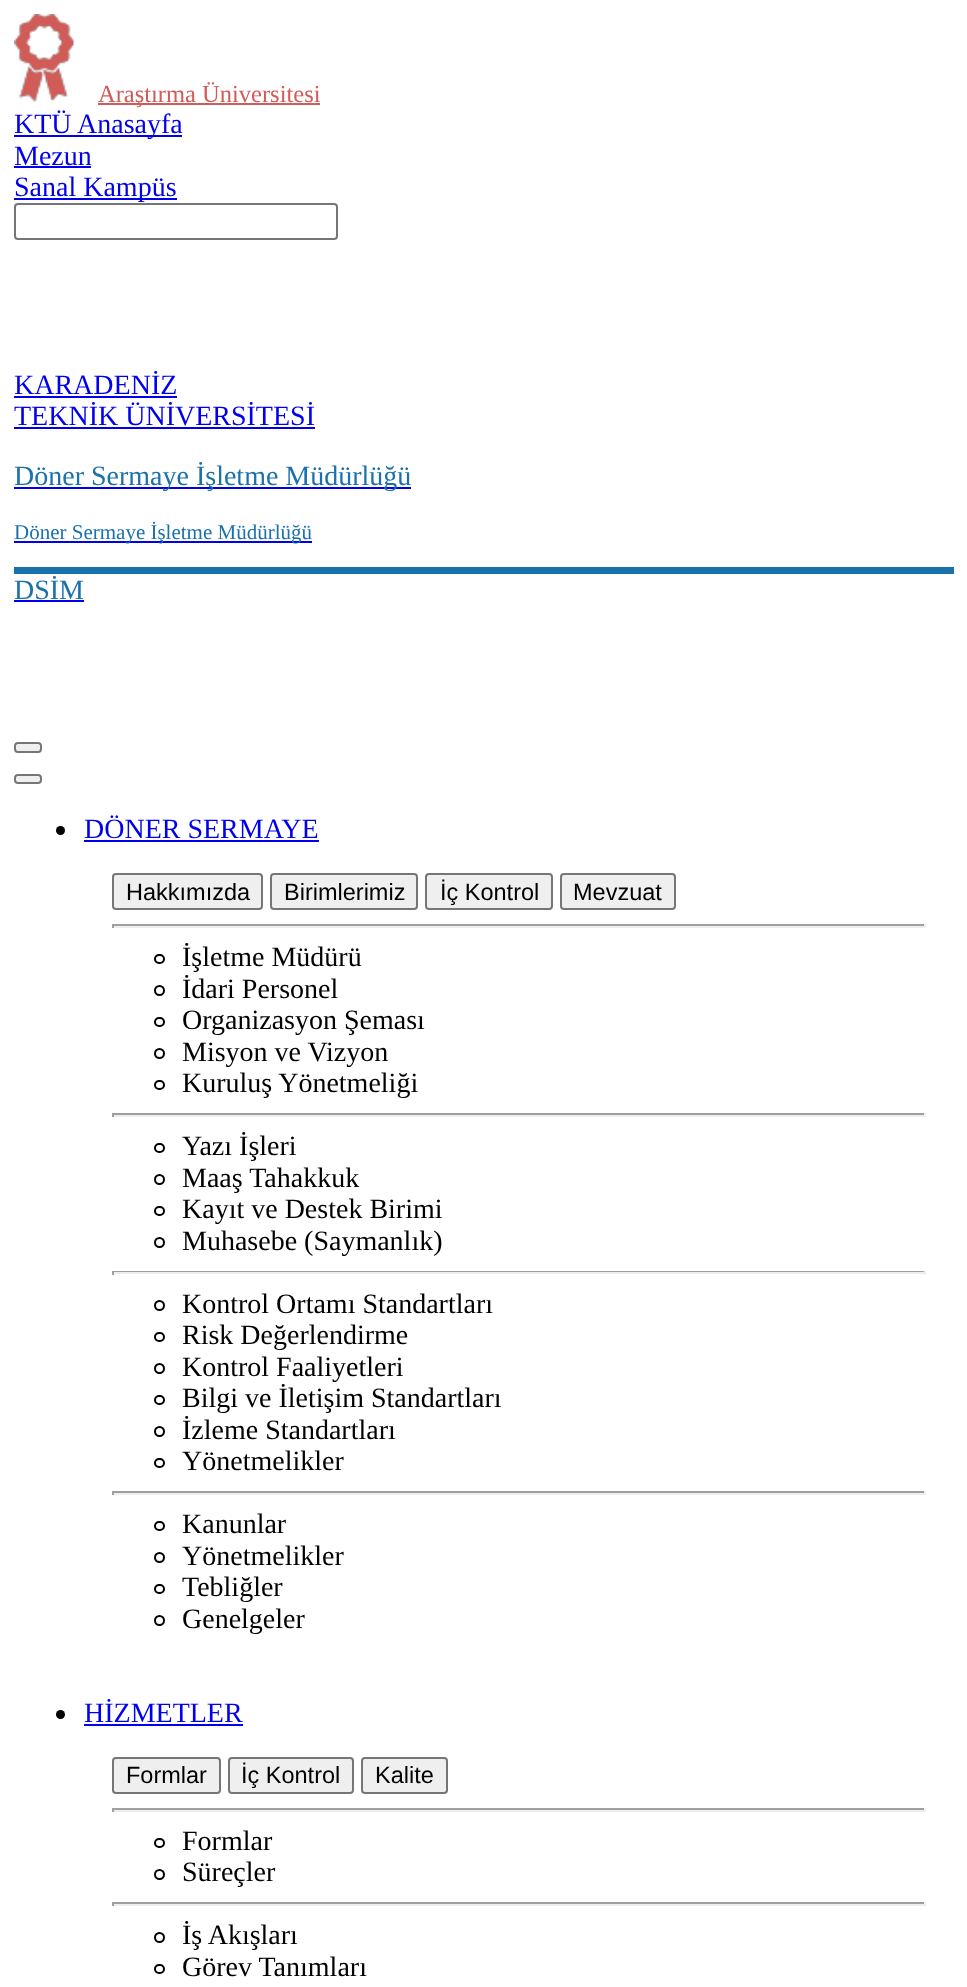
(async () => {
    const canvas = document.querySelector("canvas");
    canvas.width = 967;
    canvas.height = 1987;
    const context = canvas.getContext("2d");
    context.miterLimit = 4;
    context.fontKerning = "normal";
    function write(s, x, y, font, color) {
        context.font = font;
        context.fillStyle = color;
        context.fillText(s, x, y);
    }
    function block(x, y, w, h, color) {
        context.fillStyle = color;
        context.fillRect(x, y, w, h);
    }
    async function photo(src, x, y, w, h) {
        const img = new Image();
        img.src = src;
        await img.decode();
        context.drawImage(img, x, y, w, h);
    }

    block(0, 0, 967, 1987, "rgb(255, 255, 255)");
    await photo("media/1.png", 14, 14, 60, 88);
    block(98, 103, 222, 2, "rgb(208, 91, 87)");
    write("Araştırma Üniversitesi", 98, 102, "24.5px Liberation Serif", "rgb(208, 91, 87)");
    block(14, 135, 168, 2, "rgb(0, 0, 238)");
    write("KTÜ Anasayfa", 14, 133, "28px Liberation Serif", "rgb(0, 0, 238)");
    write("Mezun", 14, 165, "28px Liberation Serif", "rgb(0, 0, 238)");
    block(14, 166, 77, 2, "rgb(0, 0, 238)");
    block(14, 198, 163, 2, "rgb(0, 0, 238)");
    write("Sanal Kampüs", 14, 196, "28px Liberation Serif", "rgb(0, 0, 238)");
    context.beginPath();
    context.roundRect(15, 204, 322, 35, 3);
    context.strokeStyle = "rgb(118, 118, 118)";
    context.lineWidth = 2;
    context.stroke();
    write("KARADENİZ", 14, 394, "28px Liberation Serif", "rgb(0, 0, 238)");
    block(14, 396, 163, 2, "rgb(0, 0, 238)");
    write("TEKNİK ÜNİVERSİTESİ", 14, 425, "28px Liberation Serif", "rgb(0, 0, 238)");
    block(14, 427, 301, 2, "rgb(0, 0, 238)");
    block(14, 487, 397, 2, "rgb(0, 0, 238)");
    write("Döner Sermaye İşletme Müdürlüğü", 14, 485, "28px Liberation Serif", "rgb(27, 113, 172)");
    block(14, 541, 298, 2, "rgb(0, 0, 238)");
    write("Döner Sermaye İşletme Müdürlüğü", 14, 539, "21px Liberation Serif", "rgb(27, 113, 172)");
    block(14, 567, 940, 7, "rgb(27, 113, 172)");
    write("DSİM", 14, 599, "28px Liberation Serif", "rgb(27, 113, 172)");
    block(14, 600, 70, 2, "rgb(0, 0, 238)");
    context.fillStyle = "rgb(239, 239, 239)";
    context.beginPath();
    context.roundRect(15, 743, 26, 9, 3);
    context.fill();
    context.stroke();
    context.beginPath();
    context.roundRect(15, 775, 26, 8, 3);
    context.fill();
    context.stroke();
    context.fillStyle = "rgb(0, 0, 0)";
    context.beginPath();
    context.arc(60.5, 830.5, 4.5, 0, Math.PI * 2);
    context.fill();
    write("DÖNER SERMAYE", 84, 838, "28px Liberation Serif", "rgb(0, 0, 238)");
    block(84, 840, 235, 2, "rgb(0, 0, 238)");
    context.fillStyle = "rgb(239, 239, 239)";
    context.beginPath();
    context.roundRect(113, 874, 149, 35, 3);
    context.fill();
    context.stroke();
    write("Hakkımızda", 126, 900, "23.5px Liberation Sans", "rgb(0, 0, 0)");
    context.fillStyle = "rgb(239, 239, 239)";
    context.beginPath();
    context.roundRect(271, 874, 146, 35, 3);
    context.fill();
    context.stroke();
    write("Birimlerimiz", 284, 900, "23.5px Liberation Sans", "rgb(0, 0, 0)");
    context.fillStyle = "rgb(239, 239, 239)";
    context.beginPath();
    context.roundRect(426, 874, 126, 35, 3);
    context.fill();
    context.stroke();
    write("İç Kontrol", 440, 900, "23.5px Liberation Sans", "rgb(0, 0, 0)");
    context.fillStyle = "rgb(239, 239, 239)";
    context.beginPath();
    context.roundRect(561, 874, 114, 35, 3);
    context.fill();
    context.stroke();
    write("Mevzuat", 573, 900, "23.5px Liberation Sans", "rgb(0, 0, 0)");
    block(112, 924, 814, 2, "rgb(159, 159, 159)");
    block(924, 924, 2, 4, "rgb(238, 238, 238)");
    block(112, 926, 814, 2, "rgb(238, 238, 238)");
    block(112, 924, 2, 4, "rgb(159, 159, 159)");
    context.beginPath();
    context.roundRect(155, 955, 9, 8, 4);
    context.strokeStyle = "rgb(0, 0, 0)";
    context.stroke();
    write("İşletme Müdürü", 182, 966, "28px Liberation Serif", "rgb(0, 0, 0)");
    context.beginPath();
    context.arc(159.5, 990.5, 4.5, 0, Math.PI * 2);
    context.stroke();
    write("İdari Personel", 182, 998, "28px Liberation Serif", "rgb(0, 0, 0)");
    context.beginPath();
    context.roundRect(155, 1018, 9, 8, 4);
    context.stroke();
    write("Organizasyon Şeması", 182, 1029, "28px Liberation Serif", "rgb(0, 0, 0)");
    context.beginPath();
    context.arc(159.5, 1053.5, 4.5, 0, Math.PI * 2);
    context.stroke();
    write("Misyon ve Vizyon", 182, 1061, "28px Liberation Serif", "rgb(0, 0, 0)");
    context.beginPath();
    context.roundRect(155, 1081, 9, 8, 4);
    context.stroke();
    write("Kuruluş Yönetmeliği", 182, 1092, "28px Liberation Serif", "rgb(0, 0, 0)");
    block(112, 1113, 814, 2, "rgb(159, 159, 159)");
    block(924, 1113, 2, 4, "rgb(238, 238, 238)");
    block(112, 1115, 814, 2, "rgb(238, 238, 238)");
    block(112, 1113, 2, 4, "rgb(159, 159, 159)");
    context.beginPath();
    context.roundRect(155, 1144, 9, 8, 4);
    context.stroke();
    write("Yazı İşleri", 182, 1155, "28px Liberation Serif", "rgb(0, 0, 0)");
    context.beginPath();
    context.arc(159.5, 1179.5, 4.5, 0, Math.PI * 2);
    context.stroke();
    write("Maaş Tahakkuk", 182, 1187, "28px Liberation Serif", "rgb(0, 0, 0)");
    context.beginPath();
    context.roundRect(155, 1207, 9, 8, 4);
    context.stroke();
    write("Kayıt ve Destek Birimi", 182, 1218, "28px Liberation Serif", "rgb(0, 0, 0)");
    context.beginPath();
    context.arc(159.5, 1242.5, 4.5, 0, Math.PI * 2);
    context.stroke();
    write("Muhasebe (Saymanlık)", 182, 1250, "28px Liberation Serif", "rgb(0, 0, 0)");
    block(112, 1271, 814, 1, "rgb(159, 159, 159)");
    block(924, 1271, 2, 4, "rgb(238, 238, 238)");
    block(112, 1272, 814, 2, "rgb(238, 238, 238)");
    block(112, 1271, 2, 4, "rgb(159, 159, 159)");
    context.beginPath();
    context.arc(159.5, 1305.5, 4.5, 0, Math.PI * 2);
    context.stroke();
    write("Kontrol Ortamı Standartları", 182, 1313, "28px Liberation Serif", "rgb(0, 0, 0)");
    context.beginPath();
    context.roundRect(155, 1333, 9, 8, 4);
    context.stroke();
    write("Risk Değerlendirme", 182, 1344, "28px Liberation Serif", "rgb(0, 0, 0)");
    context.beginPath();
    context.arc(159.5, 1368.5, 4.5, 0, Math.PI * 2);
    context.stroke();
    write("Kontrol Faaliyetleri", 182, 1376, "28px Liberation Serif", "rgb(0, 0, 0)");
    context.beginPath();
    context.roundRect(155, 1396, 9, 8, 4);
    context.stroke();
    write("Bilgi ve İletişim Standartları", 182, 1407, "28px Liberation Serif", "rgb(0, 0, 0)");
    context.beginPath();
    context.arc(159.5, 1431.5, 4.5, 0, Math.PI * 2);
    context.stroke();
    write("İzleme Standartları", 182, 1439, "28px Liberation Serif", "rgb(0, 0, 0)");
    context.beginPath();
    context.roundRect(155, 1459, 9, 8, 4);
    context.stroke();
    write("Yönetmelikler", 182, 1470, "28px Liberation Serif", "rgb(0, 0, 0)");
    block(112, 1491, 814, 2, "rgb(159, 159, 159)");
    block(924, 1491, 2, 4, "rgb(238, 238, 238)");
    block(112, 1493, 814, 2, "rgb(238, 238, 238)");
    block(112, 1491, 2, 4, "rgb(159, 159, 159)");
    context.beginPath();
    context.roundRect(155, 1522, 9, 8, 4);
    context.stroke();
    write("Kanunlar", 182, 1533, "28px Liberation Serif", "rgb(0, 0, 0)");
    context.beginPath();
    context.arc(159.5, 1557.5, 4.5, 0, Math.PI * 2);
    context.stroke();
    write("Yönetmelikler", 182, 1565, "28px Liberation Serif", "rgb(0, 0, 0)");
    context.beginPath();
    context.roundRect(155, 1585, 9, 8, 4);
    context.stroke();
    write("Tebliğler", 182, 1596, "28px Liberation Serif", "rgb(0, 0, 0)");
    context.beginPath();
    context.arc(159.5, 1620.5, 4.5, 0, Math.PI * 2);
    context.stroke();
    write("Genelgeler", 182, 1628, "28px Liberation Serif", "rgb(0, 0, 0)");
    context.beginPath();
    context.arc(60.5, 1714.5, 4.5, 0, Math.PI * 2);
    context.fill();
    write("HİZMETLER", 84, 1722, "28px Liberation Serif", "rgb(0, 0, 238)");
    block(84, 1724, 159, 2, "rgb(0, 0, 238)");
    context.fillStyle = "rgb(239, 239, 239)";
    context.beginPath();
    context.roundRect(113, 1758, 107, 35, 3);
    context.fill();
    context.strokeStyle = "rgb(118, 118, 118)";
    context.stroke();
    write("Formlar", 126, 1783, "23.5px Liberation Sans", "rgb(0, 0, 0)");
    context.fillStyle = "rgb(239, 239, 239)";
    context.beginPath();
    context.roundRect(229, 1758, 124, 35, 3);
    context.fill();
    context.stroke();
    write("İç Kontrol", 241, 1783, "23.5px Liberation Sans", "rgb(0, 0, 0)");
    context.fillStyle = "rgb(239, 239, 239)";
    context.beginPath();
    context.roundRect(362, 1758, 85, 35, 3);
    context.fill();
    context.stroke();
    write("Kalite", 375, 1783, "23.5px Liberation Sans", "rgb(0, 0, 0)");
    block(112, 1808, 814, 2, "rgb(159, 159, 159)");
    block(924, 1808, 2, 4, "rgb(238, 238, 238)");
    block(112, 1810, 814, 2, "rgb(238, 238, 238)");
    block(112, 1808, 2, 4, "rgb(159, 159, 159)");
    context.beginPath();
    context.roundRect(155, 1839, 9, 8, 4);
    context.strokeStyle = "rgb(0, 0, 0)";
    context.stroke();
    write("Formlar", 182, 1850, "28px Liberation Serif", "rgb(0, 0, 0)");
    context.beginPath();
    context.arc(159.5, 1874.5, 4.5, 0, Math.PI * 2);
    context.stroke();
    write("Süreçler", 182, 1881, "28px Liberation Serif", "rgb(0, 0, 0)");
    block(112, 1902, 814, 2, "rgb(159, 159, 159)");
    block(924, 1902, 2, 4, "rgb(238, 238, 238)");
    block(112, 1904, 814, 2, "rgb(238, 238, 238)");
    block(112, 1902, 2, 4, "rgb(159, 159, 159)");
    context.beginPath();
    context.arc(159.5, 1937.5, 4.5, 0, Math.PI * 2);
    context.stroke();
    write("İş Akışları", 182, 1944, "28px Liberation Serif", "rgb(0, 0, 0)");
    context.beginPath();
    context.roundRect(155, 1965, 9, 8, 4);
    context.stroke();
    write("Görev Tanımları", 182, 1976, "28px Liberation Serif", "rgb(0, 0, 0)");
})();
